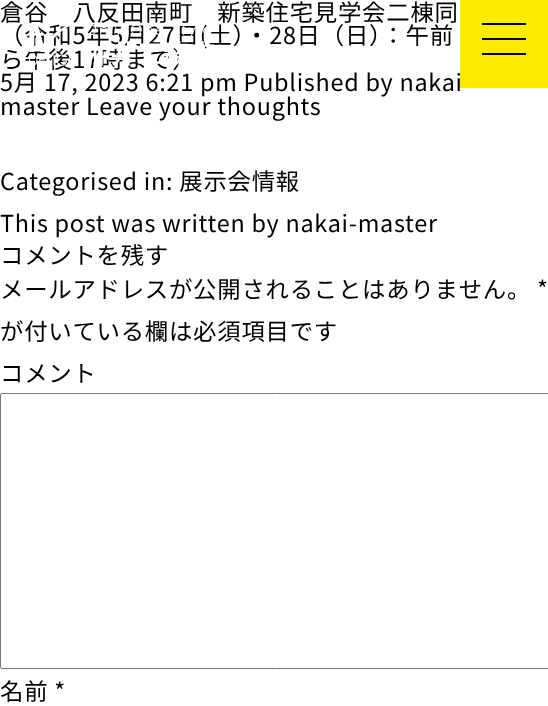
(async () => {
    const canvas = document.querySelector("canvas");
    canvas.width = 548;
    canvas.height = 706;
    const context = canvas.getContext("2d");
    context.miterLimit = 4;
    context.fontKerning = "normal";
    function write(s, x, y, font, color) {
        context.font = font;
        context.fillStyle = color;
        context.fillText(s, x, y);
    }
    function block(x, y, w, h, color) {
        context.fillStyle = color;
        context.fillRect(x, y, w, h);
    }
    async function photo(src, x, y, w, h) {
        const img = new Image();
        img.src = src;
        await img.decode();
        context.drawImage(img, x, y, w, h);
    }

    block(0, 0, 548, 706, "rgb(255, 255, 255)");
    context.letterSpacing = "0.75px";
    write("（令和5年5月27日(土）・28日（日）：午前", 0, 44, "23.4px Noto Sans JP", "rgb(0, 0, 0)");
    block(460, 0, 88, 88, "rgb(255, 235, 0)");
    block(482, 23, 44, 2, "rgb(0, 0, 0)");
    block(482, 38, 44, 2, "rgb(0, 0, 0)");
    block(482, 53, 44, 2, "rgb(0, 0, 0)");
    write("倉谷　八反田南町　新築住宅見学会二棟同", 0, 21, "23.4px Noto Sans JP", "rgb(0, 0, 0)");
    write("ら午後17時まで）", 0, 68, "23.4px Noto Sans JP", "rgb(0, 0, 0)");
    write("5月 17, 2023 6:21 pm Published by nakai", 0, 91, "23.4px Noto Sans JP", "rgb(0, 0, 0)");
    write("master Leave your thoughts", 0, 115, "23.4px Noto Sans JP", "rgb(0, 0, 0)");
    write("Categorised in: 展示会情報", 0, 190, "23.4px Noto Sans JP", "rgb(0, 0, 0)");
    write("This post was written by nakai-master", 0, 232, "23.4px Noto Sans JP", "rgb(0, 0, 0)");
    write("コメントを残す", 0, 264, "23.4px Noto Sans JP", "rgb(0, 0, 0)");
    write("メールアドレスが公開されることはありません。 *", 0, 298, "23.4px Noto Sans JP", "rgb(0, 0, 0)");
    write("が付いている欄は必須項目です", 0, 340, "23.4px Noto Sans JP", "rgb(0, 0, 0)");
    write("コメント", 0, 382, "23.4px Noto Sans JP", "rgb(0, 0, 0)");
    context.beginPath();
    context.roundRect(0.5, 393.5, 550, 275, 1.5);
    context.strokeStyle = "rgb(118, 118, 118)";
    context.stroke();
    write("名前 *", 0, 700, "23.4px Noto Sans JP", "rgb(0, 0, 0)");
    await photo("media/1.png", 29, 22, 185, 44);
})();
